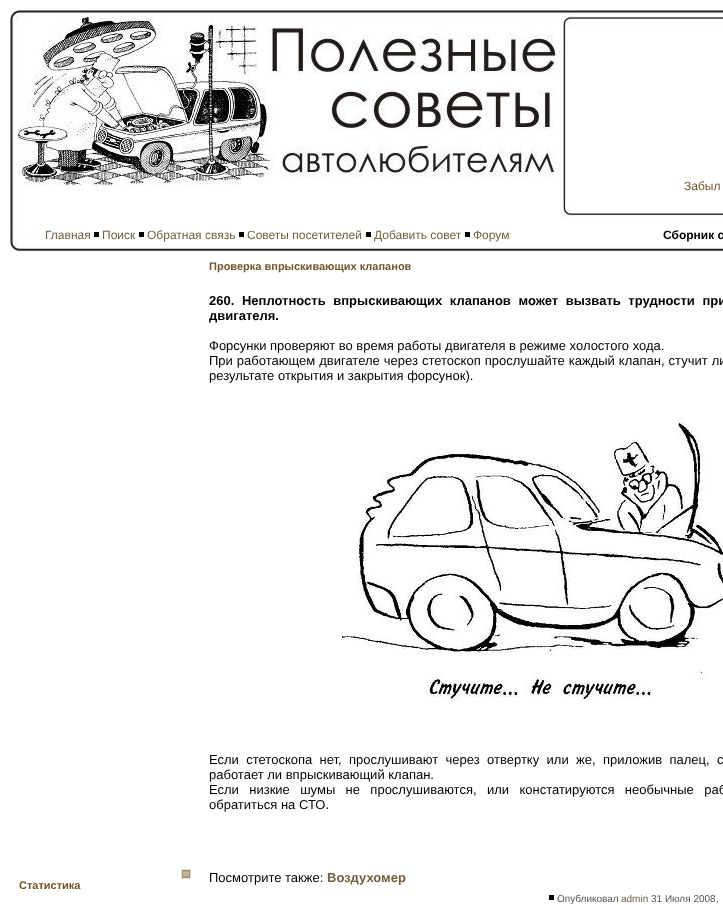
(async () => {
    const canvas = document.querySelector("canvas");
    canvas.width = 723;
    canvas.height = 905;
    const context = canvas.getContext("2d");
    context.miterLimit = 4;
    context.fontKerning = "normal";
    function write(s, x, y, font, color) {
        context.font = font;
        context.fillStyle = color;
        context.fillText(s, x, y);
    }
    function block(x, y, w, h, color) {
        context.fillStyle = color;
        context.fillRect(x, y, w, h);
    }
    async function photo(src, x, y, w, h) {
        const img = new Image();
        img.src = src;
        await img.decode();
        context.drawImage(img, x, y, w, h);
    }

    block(0, 0, 723, 905, "rgb(255, 255, 255)");
    await photo("media/1.png", 10, 10, 552, 218);
    await photo("media/2.png", 562, 10, 161, 208);
    write("Забыл", 684, 190, "12px Liberation Sans", "rgb(111, 87, 45)");
    await photo("media/3.png", 10, 228, 713, 24);
    write("Главная", 45, 239, "12px Liberation Sans", "rgb(113, 94, 62)");
    block(94, 232, 5, 5, "rgb(0, 0, 0)");
    write("Поиск", 102, 239, "12px Liberation Sans", "rgb(113, 94, 62)");
    block(139, 232, 5, 5, "rgb(0, 0, 0)");
    write("Обратная связь", 147, 239, "12px Liberation Sans", "rgb(113, 94, 62)");
    write("Советы посетителей", 247, 239, "12px Liberation Sans", "rgb(113, 94, 62)");
    block(239, 232, 5, 5, "rgb(0, 0, 0)");
    block(366, 232, 5, 5, "rgb(0, 0, 0)");
    write("Добавить совет", 374, 239, "12px Liberation Sans", "rgb(113, 94, 62)");
    block(465, 232, 5, 5, "rgb(0, 0, 0)");
    write("Форум", 473, 239, "12px Liberation Sans", "rgb(113, 94, 62)");
    write("Сборник с", 663, 239, "bold 12px Liberation Sans", "rgb(0, 0, 0)");
    await photo("media/4.png", 181, 869, 10, 10);
    write("Статистика", 19, 889, "bold 11px Liberation Sans", "rgb(114, 83, 34)");
    write("Проверка впрыскивающих клапанов", 209, 270, "bold 11px Liberation Sans", "rgb(111, 87, 45)");
    context.wordSpacing = "4px";
    write("260. Неплотность впрыскивающих клапанов может вызвать трудности при", 209, 305, "bold 13px Liberation Sans", "rgb(0, 0, 0)");
    context.wordSpacing = "0px";
    write("двигателя.", 209, 320, "bold 13px Liberation Sans", "rgb(0, 0, 0)");
    write("Форсунки проверяют во время работы двигателя в режиме холостого хода.", 209, 350, "13px Liberation Sans", "rgb(0, 0, 0)");
    context.wordSpacing = "0.4px";
    write("При работающем двигателе через стетоскоп прослушайте каждый клапан, стучит ли", 209, 365, "13px Liberation Sans", "rgb(0, 0, 0)");
    context.wordSpacing = "0px";
    write("результате открытия и закрытия форсунок).", 209, 380, "13px Liberation Sans", "rgb(0, 0, 0)");
    await photo("media/5.png", 341, 416, 382, 287);
    context.wordSpacing = "3.75px";
    write("Если стетоскопа нет, прослушивают через отвертку или же, приложив палец, с", 209, 764, "13px Liberation Sans", "rgb(0, 0, 0)");
    context.wordSpacing = "0px";
    write("работает ли впрыскивающий клапан.", 209, 779, "13px Liberation Sans", "rgb(0, 0, 0)");
    context.wordSpacing = "6.75px";
    write("Если низкие шумы не прослушиваются, или констатируются необычные раб", 209, 794, "13px Liberation Sans", "rgb(0, 0, 0)");
    context.wordSpacing = "0px";
    write("обратиться на СТО.", 209, 809, "13px Liberation Sans", "rgb(0, 0, 0)");
    write("Посмотрите также:", 209, 882, "13px Liberation Sans", "rgb(0, 0, 0)");
    write("Воздухомер", 327, 882, "bold 13px Liberation Sans", "rgb(113, 94, 62)");
    block(549, 895, 5, 5, "rgb(0, 0, 0)");
    write("Опубликовал", 557, 902, "10px Liberation Sans", "rgb(85, 85, 85)");
    write("admin", 621, 902, "10px Liberation Sans", "rgb(113, 94, 62)");
    write("31 Июля 2008,", 651, 902, "10px Liberation Sans", "rgb(85, 85, 85)");
})();
